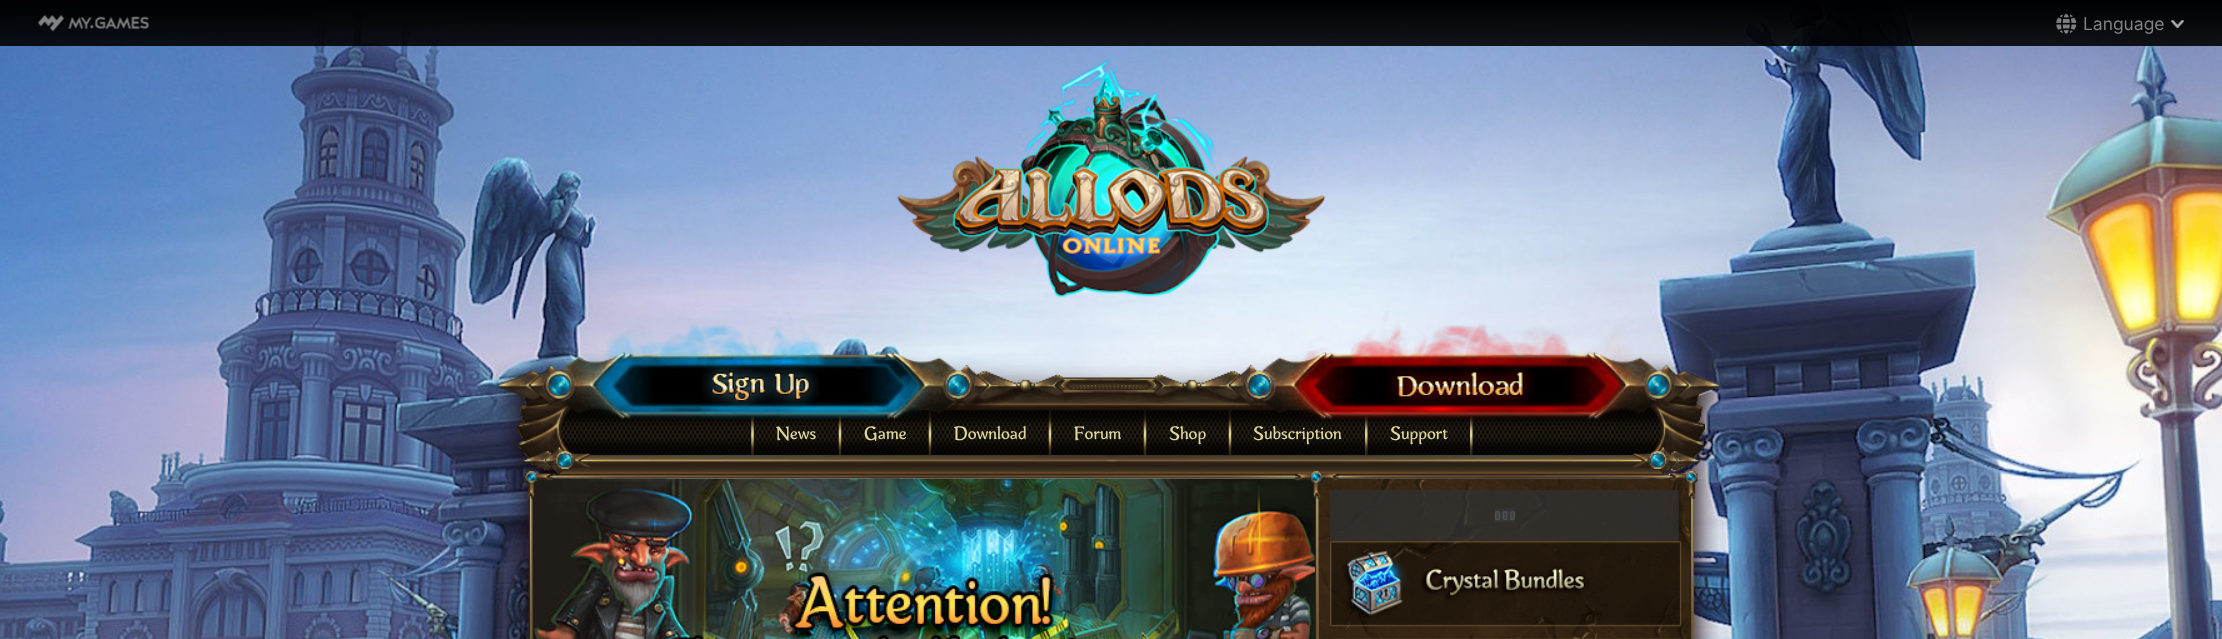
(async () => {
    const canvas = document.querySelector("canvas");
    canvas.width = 2222;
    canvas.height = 639;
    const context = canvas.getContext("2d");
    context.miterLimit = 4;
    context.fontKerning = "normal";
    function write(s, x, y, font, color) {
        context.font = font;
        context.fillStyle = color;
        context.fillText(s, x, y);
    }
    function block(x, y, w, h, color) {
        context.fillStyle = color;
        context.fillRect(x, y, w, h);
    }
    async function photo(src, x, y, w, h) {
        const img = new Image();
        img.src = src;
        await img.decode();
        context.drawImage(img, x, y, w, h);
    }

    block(0, 0, 2222, 639, "rgb(255, 255, 255)");
    await photo("media/1.png", 0, 0, 2222, 639);
    await photo("media/2.png", 38, 15, 111, 17);
    await photo("media/3.png", 2056, 14, 20, 20);
    write("Language", 2083, 30, "17.5px Inter", "rgb(132, 132, 134)");
    await photo("media/4.png", 2171, 20, 13, 8);
    await photo("media/5.png", 488, 354, 1249, 125);
    await photo("media/6.png", 897, 57, 429, 241);
    await photo("media/12.png", 517, 387, 1188, 92);
    await photo("media/7.png", 498, 364, 1224, 42);
    await photo("media/13.png", 751, 415, 3, 40);
    await photo("media/14.png", 838, 415, 4, 40);
    await photo("media/15.png", 928, 410, 4, 45);
    await photo("media/8.png", 561, 312, 396, 107);
    await photo("media/9.png", 702, 364, 117, 43);
    await photo("media/19.png", 1365, 415, 3, 40);
    await photo("media/20.png", 1470, 415, 3, 40);
    await photo("media/10.png", 1262, 311, 396, 108);
    await photo("media/11.png", 1386, 366, 149, 40);
    write("News", 776, 439, "17.5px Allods", "rgb(222, 215, 157)");
    write("Game", 864, 439, "17.5px Allods", "rgb(222, 215, 157)");
    write("Download", 954, 439, "17.5px Allods", "rgb(222, 215, 157)");
    await photo("media/16.png", 1048, 410, 4, 45);
    write("Forum", 1074, 439, "17.5px Allods", "rgb(222, 215, 157)");
    await photo("media/17.png", 1143, 410, 4, 45);
    write("Shop", 1169, 439, "17.5px Allods", "rgb(222, 215, 157)");
    await photo("media/18.png", 1228, 410, 4, 45);
    write("Subscription", 1253, 439, "17.5px Allods", "rgb(222, 215, 157)");
    write("Support", 1390, 439, "17.5px Allods", "rgb(222, 215, 157)");
    await photo("media/21.png", 507, 478, 1211, 161);
    await photo("media/22.png", 528, 478, 1166, 161);
    await photo("media/24.png", 532, 478, 783, 161);
    await photo("media/25.png", 1330, 490, 349, 52);
    await photo("media/23.png", 525, 471, 1173, 28);
    await photo("media/26.png", 1330, 541, 352, 86);
    await photo("media/27.png", 1330, 638, 351, 1);
})();
